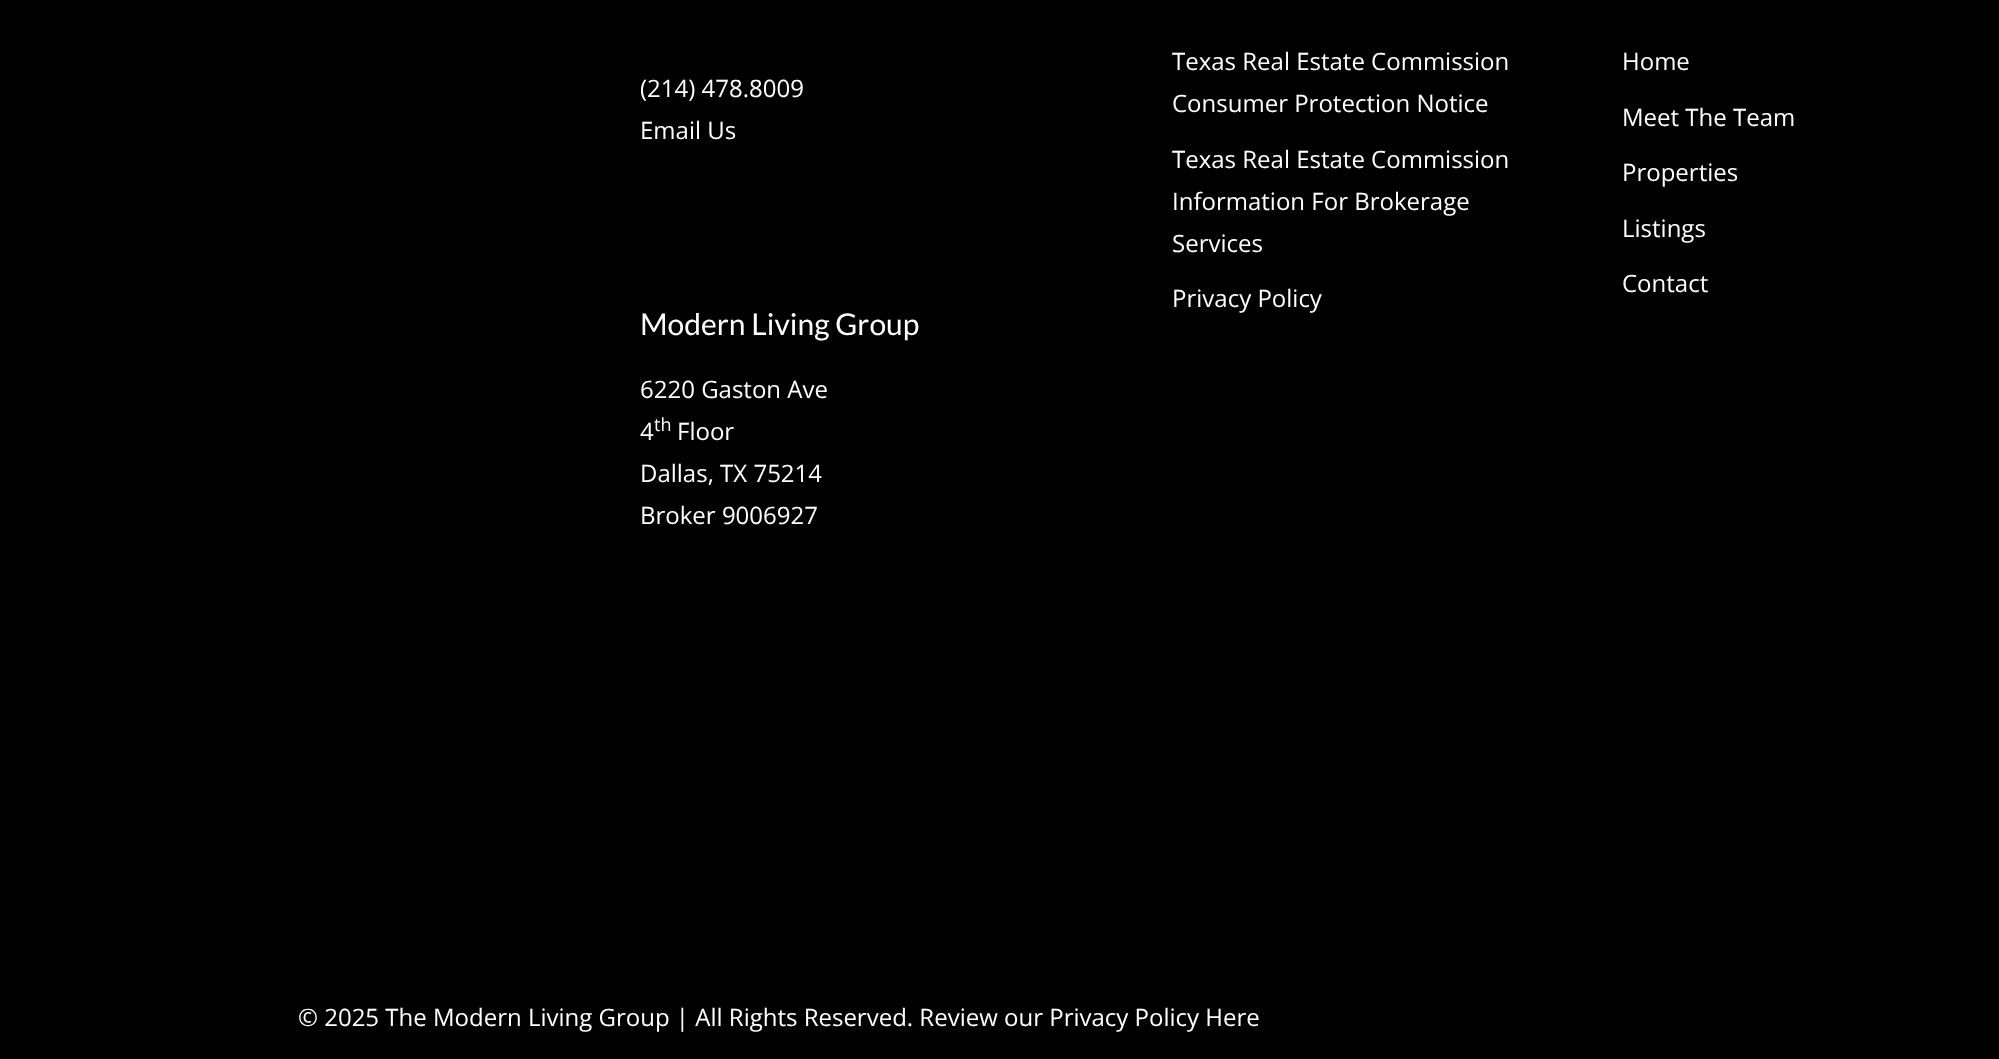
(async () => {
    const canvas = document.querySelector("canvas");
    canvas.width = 1999;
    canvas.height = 1059;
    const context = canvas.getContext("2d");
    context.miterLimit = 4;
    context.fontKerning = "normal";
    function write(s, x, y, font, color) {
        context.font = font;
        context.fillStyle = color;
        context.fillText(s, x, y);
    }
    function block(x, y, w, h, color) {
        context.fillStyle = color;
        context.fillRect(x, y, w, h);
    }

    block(0, 0, 1999, 1059, "rgb(0, 0, 0)");
    write("(214) 478.8009", 640, 97, "24px Open Sans", "rgb(255, 255, 255)");
    write("Email Us", 640, 139, "24px Open Sans", "rgb(255, 255, 255)");
    write("Modern Living Group", 640, 335, "30px Lato", "rgb(255, 255, 255)");
    write("6220 Gaston Ave", 640, 398, "24px Open Sans", "rgb(255, 255, 255)");
    write("4", 640, 440, "24px Open Sans", "rgb(255, 255, 255)");
    write("th", 654, 431, "18px Open Sans", "rgb(255, 255, 255)");
    write("Floor", 677, 440, "24px Open Sans", "rgb(255, 255, 255)");
    write("Dallas, TX 75214", 640, 482, "24px Open Sans", "rgb(255, 255, 255)");
    write("Broker 9006927", 640, 524, "24px Open Sans", "rgb(255, 255, 255)");
    write("Texas Real Estate Commission", 1172, 70, "24px Open Sans", "rgb(255, 255, 255)");
    write("Consumer Protection Notice", 1172, 112, "24px Open Sans", "rgb(255, 255, 255)");
    write("Texas Real Estate Commission", 1172, 168, "24px Open Sans", "rgb(255, 255, 255)");
    write("Information For Brokerage", 1172, 210, "24px Open Sans", "rgb(255, 255, 255)");
    write("Services", 1172, 252, "24px Open Sans", "rgb(255, 255, 255)");
    write("Privacy Policy", 1172, 307, "24px Open Sans", "rgb(255, 255, 255)");
    write("Home", 1622, 70, "24px Open Sans", "rgb(255, 255, 255)");
    write("Meet The Team", 1622, 126, "24px Open Sans", "rgb(255, 255, 255)");
    write("Properties", 1622, 181, "24px Open Sans", "rgb(255, 255, 255)");
    write("Listings", 1622, 237, "24px Open Sans", "rgb(255, 255, 255)");
    write("Contact", 1622, 292, "24px Open Sans", "rgb(255, 255, 255)");
    write("© 2025 The Modern Living Group | All Rights Reserved. Review our Privacy Policy Here", 298, 1026, "24px Open Sans", "rgb(255, 255, 255)");
})();
